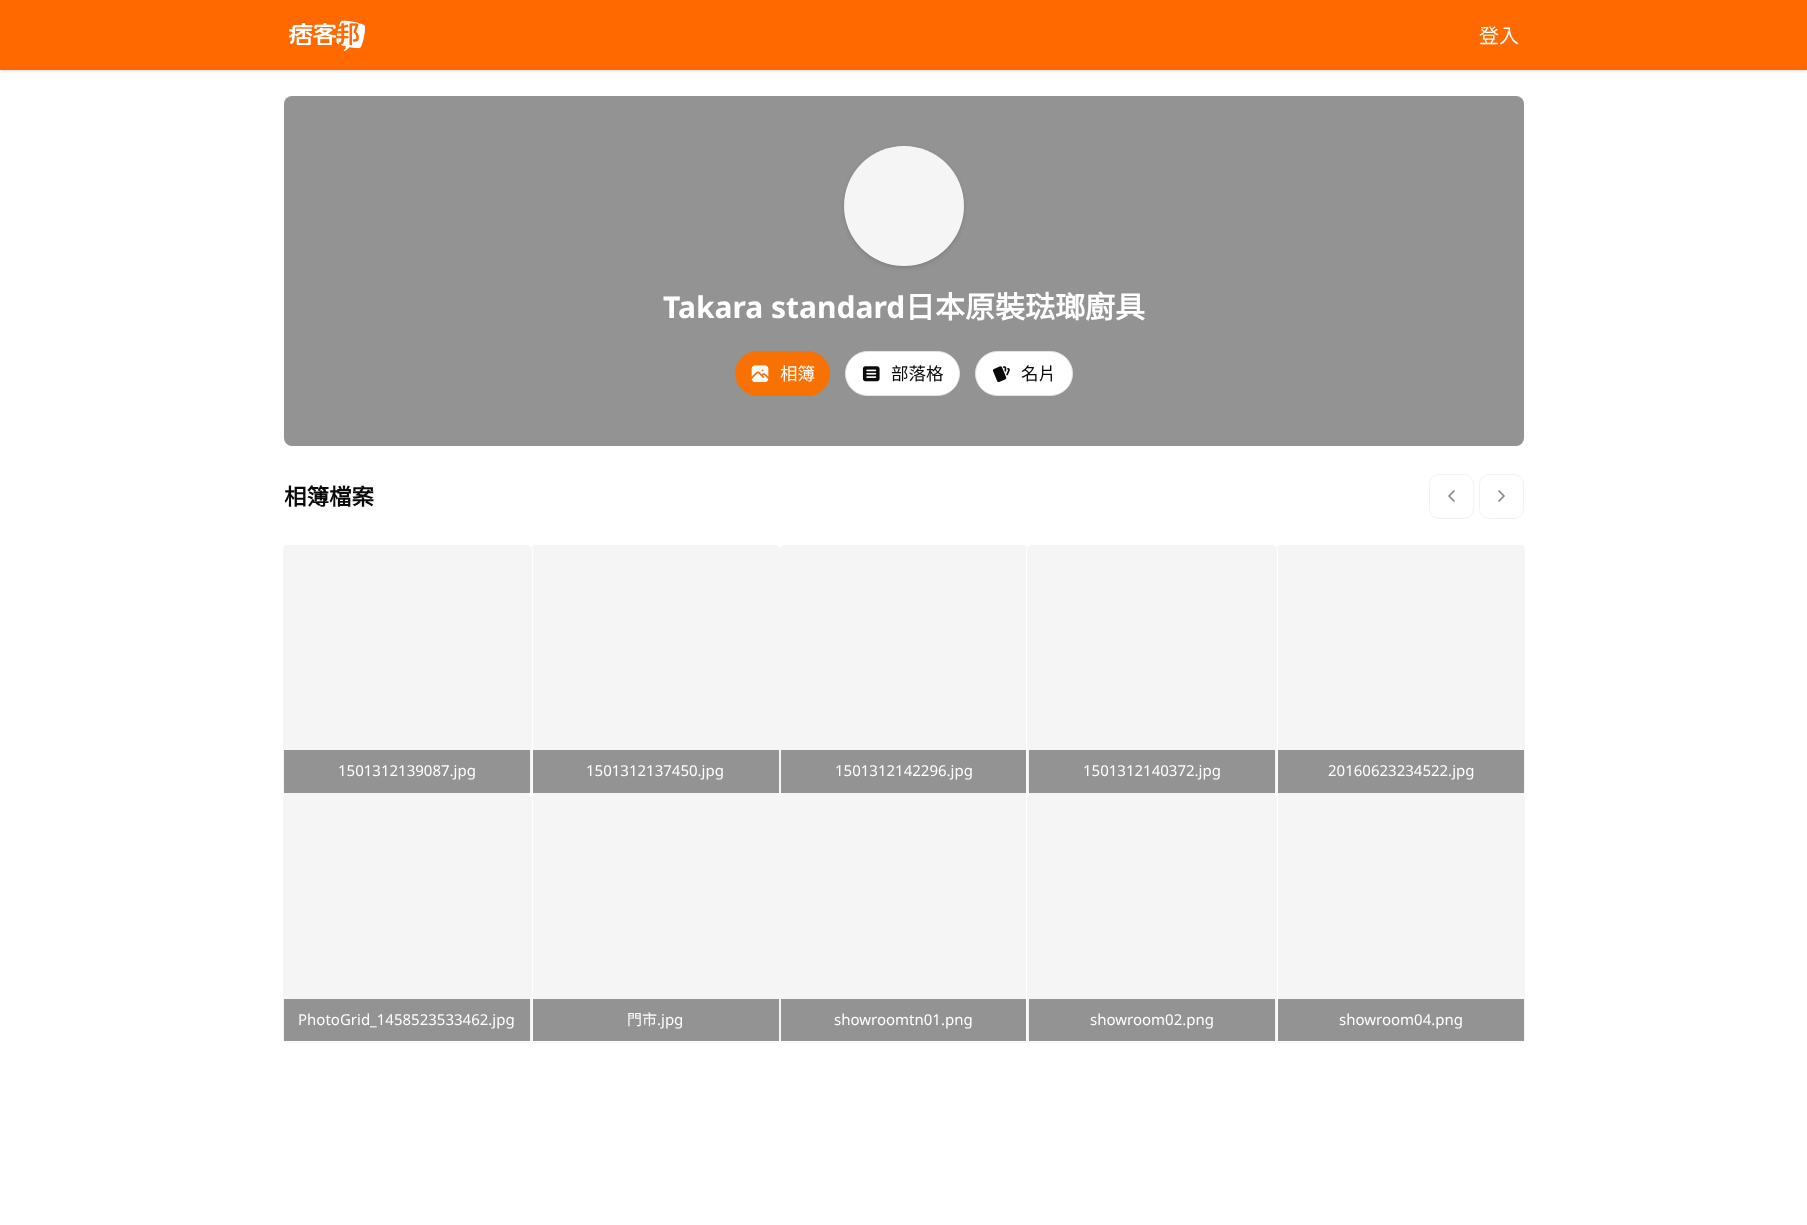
(async () => {
    const canvas = document.querySelector("canvas");
    canvas.width = 1807;
    canvas.height = 1225;
    const context = canvas.getContext("2d");
    context.miterLimit = 4;
    context.fontKerning = "normal";
    function write(s, x, y, font, color) {
        context.font = font;
        context.fillStyle = color;
        context.fillText(s, x, y);
    }
    function block(x, y, w, h, color) {
        context.fillStyle = color;
        context.fillRect(x, y, w, h);
    }
    function card(x, y, w, h, r, color) {
        context.fillStyle = color;
        context.beginPath();
        context.roundRect(x, y, w, h, r);
        context.fill();
    }
    async function photo(src, x, y, w, h) {
        const img = new Image();
        img.src = src;
        await img.decode();
        context.drawImage(img, x, y, w, h);
    }

    block(0, 0, 1807, 1225, "rgb(255, 255, 255)");
    context.fillStyle = "rgba(0, 0, 0, 0.1)";
    context.filter = "blur(1px)";
    context.beginPath();
    context.rect(1, 3, 1805, 67);
    context.fill();
    context.filter = "none";
    context.filter = "blur(2px)";
    context.beginPath();
    context.rect(0, 1, 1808, 70);
    context.fill();
    context.filter = "none";
    block(0, 0, 1807, 70, "rgb(255, 105, 0)");
    await photo("media/1.png", 289, 20, 76, 31);
    write("登入", 1479, 43, "20px Noto Sans CJK TC", "rgb(255, 255, 255)");
    card(284, 96, 1240, 350, 8, "rgb(245, 245, 245)");
    card(284, 96, 1240, 350, 8, "rgba(0, 0, 0, 0.4)");
    context.fillStyle = "rgba(0, 0, 0, 0.1)";
    context.filter = "blur(1px)";
    context.beginPath();
    context.roundRect(845, 149, 118, 117, 58.5);
    context.fill();
    context.filter = "none";
    context.filter = "blur(2px)";
    context.beginPath();
    context.roundRect(844, 148, 120, 120, 60);
    context.fill();
    context.filter = "none";
    context.fillStyle = "rgb(245, 245, 245)";
    context.beginPath();
    context.arc(904, 206, 60, 0, Math.PI * 2);
    context.fill();
    write("Takara standard", 663, 318, "bold 30px Noto Sans", "rgb(255, 255, 255)");
    write("日本原裝琺瑯廚具", 905, 318, "bold 30px Noto Sans CJK TC", "rgb(255, 255, 255)");
    card(735, 351, 95, 45, 22.5, "rgb(248, 113, 3)");
    await photo("media/2.png", 751, 365, 18, 18);
    write("相簿", 780, 380, "17.5px Noto Sans CJK TC", "rgb(255, 255, 255)");
    context.beginPath();
    context.roundRect(845.5, 351.5, 114, 44, 22);
    context.fill();
    context.strokeStyle = "rgb(229, 229, 229)";
    context.stroke();
    await photo("media/3.png", 862, 366, 18, 16);
    write("部落格", 891, 380, "17.5px Noto Sans CJK TC", "rgb(10, 10, 10)");
    context.fillStyle = "rgb(255, 255, 255)";
    context.beginPath();
    context.roundRect(975.5, 351.5, 97, 44, 22);
    context.fill();
    context.stroke();
    await photo("media/4.png", 992, 366, 18, 17);
    write("名片", 1021, 380, "17.5px Noto Sans CJK TC", "rgb(10, 10, 10)");
    write("相簿檔案", 284, 505, "bold 22.5px Noto Sans CJK TC", "rgb(10, 10, 10)");
    context.beginPath();
    context.roundRect(1429.5, 474.5, 44, 44, 9.5);
    context.strokeStyle = "rgb(242, 242, 242)";
    context.stroke();
    context.beginPath();
    context.moveTo(1454, 501);
    context.lineTo(1449, 496);
    context.lineTo(1454, 491);
    context.strokeStyle = "rgb(133, 133, 133)";
    context.lineWidth = 1.7;
    context.lineCap = "round";
    context.lineJoin = "round";
    context.stroke();
    context.beginPath();
    context.roundRect(1479.5, 474.5, 44, 44, 9.5);
    context.strokeStyle = "rgb(242, 242, 242)";
    context.lineWidth = 1;
    context.lineJoin = "miter";
    context.stroke();
    context.beginPath();
    context.moveTo(1499, 501);
    context.lineTo(1504, 496);
    context.lineTo(1499, 491);
    context.strokeStyle = "rgb(133, 133, 133)";
    context.lineWidth = 1.7;
    context.lineJoin = "round";
    context.stroke();
    card(284, 546, 246, 247, 2.5, "rgb(245, 245, 245)");
    context.beginPath();
    context.roundRect(283.5, 545.5, 247, 248, 3.5);
    context.strokeStyle = "rgb(245, 245, 245)";
    context.lineWidth = 1;
    context.lineJoin = "miter";
    context.stroke();
    block(284, 750, 246, 43, "rgb(147, 147, 147)");
    write("1501312139087.jpg", 338, 776, "15px Noto Sans", "rgb(255, 255, 255)");
    card(533, 546, 246, 247, 2.5, "rgb(245, 245, 245)");
    context.beginPath();
    context.roundRect(531.5, 545.5, 248, 248, 3.5);
    context.stroke();
    block(533, 750, 246, 43, "rgba(0, 0, 0, 0.4)");
    write("1501312137450.jpg", 586, 776, "15px Noto Sans", "rgb(255, 255, 255)");
    card(781, 546, 245, 247, 2.5, "rgb(245, 245, 245)");
    context.beginPath();
    context.roundRect(780.5, 545.5, 247, 248, 3.5);
    context.stroke();
    block(781, 750, 245, 43, "rgba(0, 0, 0, 0.4)");
    write("1501312142296.jpg", 835, 776, "15px Noto Sans", "rgb(255, 255, 255)");
    card(1029, 546, 246, 247, 2.5, "rgb(245, 245, 245)");
    context.beginPath();
    context.roundRect(1028.5, 545.5, 247, 248, 3.5);
    context.stroke();
    block(1029, 750, 246, 43, "rgb(147, 147, 147)");
    write("1501312140372.jpg", 1083, 776, "15px Noto Sans", "rgb(255, 255, 255)");
    card(1278, 546, 246, 247, 2.5, "rgb(245, 245, 245)");
    context.beginPath();
    context.roundRect(1276.5, 545.5, 248, 248, 3.5);
    context.stroke();
    block(1278, 750, 246, 43, "rgba(0, 0, 0, 0.4)");
    write("20160623234522.jpg", 1328, 776, "15px Noto Sans", "rgb(255, 255, 255)");
    card(284, 795, 246, 246, 2.5, "rgb(245, 245, 245)");
    context.beginPath();
    context.roundRect(283.5, 794.5, 247, 248, 3.5);
    context.stroke();
    block(284, 999, 246, 42, "rgba(0, 0, 0, 0.4)");
    write("PhotoGrid_1458523533462.jpg", 298, 1025, "15px Noto Sans", "rgb(255, 255, 255)");
    card(533, 795, 246, 246, 2.5, "rgb(245, 245, 245)");
    context.beginPath();
    context.roundRect(531.5, 794.5, 248, 248, 3.5);
    context.stroke();
    block(533, 999, 246, 42, "rgba(0, 0, 0, 0.4)");
    write("門市", 627, 1025, "15px Noto Sans CJK TC", "rgb(255, 255, 255)");
    write(".jpg", 657, 1025, "15px Noto Sans", "rgb(255, 255, 255)");
    card(781, 795, 245, 246, 2.5, "rgb(245, 245, 245)");
    context.beginPath();
    context.roundRect(780.5, 794.5, 247, 248, 3.5);
    context.stroke();
    block(781, 999, 245, 42, "rgba(0, 0, 0, 0.4)");
    write("showroomtn01.png", 834, 1025, "15px Noto Sans", "rgb(255, 255, 255)");
    card(1029, 795, 246, 246, 2.5, "rgb(245, 245, 245)");
    context.beginPath();
    context.roundRect(1028.5, 794.5, 247, 248, 3.5);
    context.stroke();
    block(1029, 999, 246, 42, "rgba(0, 0, 0, 0.4)");
    write("showroom02.png", 1090, 1025, "15px Noto Sans", "rgb(255, 255, 255)");
    card(1278, 795, 246, 246, 2.5, "rgb(245, 245, 245)");
    context.beginPath();
    context.roundRect(1276.5, 794.5, 248, 248, 3.5);
    context.stroke();
    block(1278, 999, 246, 42, "rgba(0, 0, 0, 0.4)");
    write("showroom04.png", 1339, 1025, "15px Noto Sans", "rgb(255, 255, 255)");
})();
